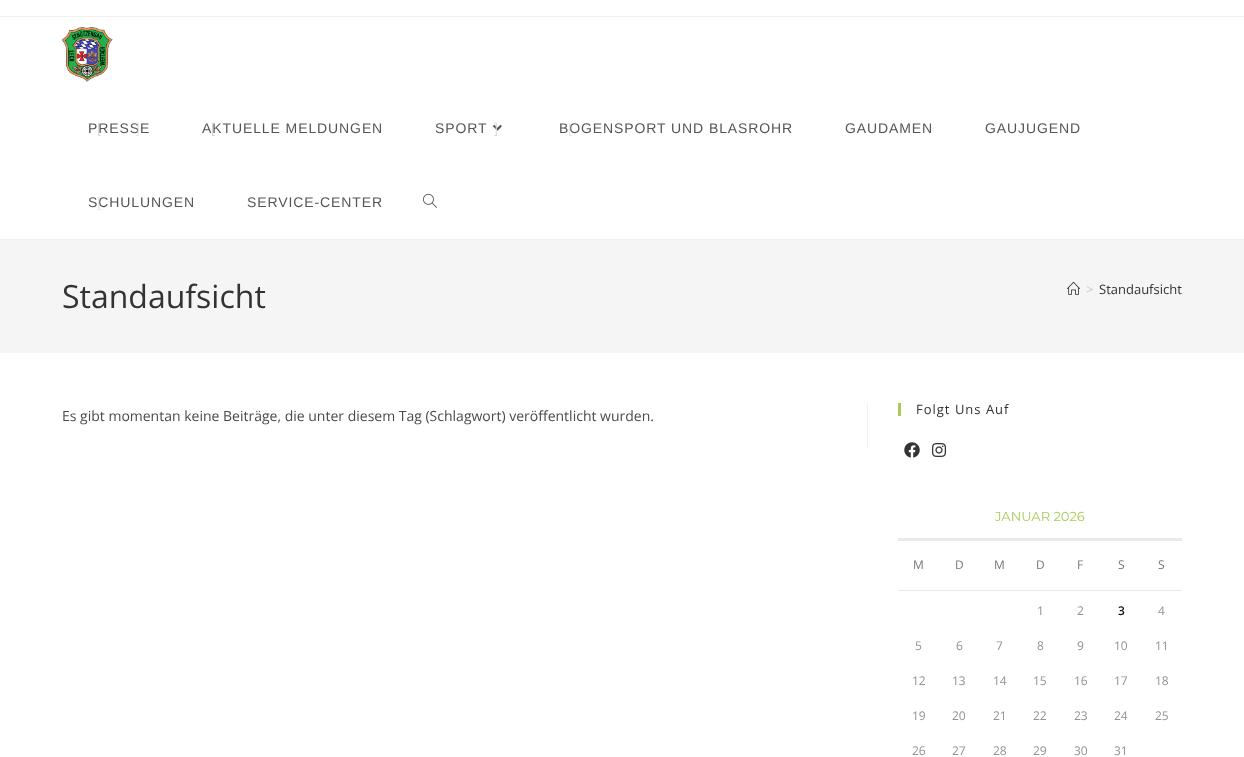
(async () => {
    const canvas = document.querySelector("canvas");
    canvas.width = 1244;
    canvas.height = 757;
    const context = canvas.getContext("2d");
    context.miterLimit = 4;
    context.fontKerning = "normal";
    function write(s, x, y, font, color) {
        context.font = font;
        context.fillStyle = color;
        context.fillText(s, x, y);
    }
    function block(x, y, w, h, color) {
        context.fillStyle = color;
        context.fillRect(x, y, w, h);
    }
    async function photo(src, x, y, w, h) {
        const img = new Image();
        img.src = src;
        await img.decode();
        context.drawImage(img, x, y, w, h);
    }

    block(0, 0, 1244, 757, "rgb(255, 255, 255)");
    block(0, 16, 1244, 1, "rgb(241, 241, 241)");
    block(0, 239, 1244, 1, "rgb(241, 241, 241)");
    await photo("media/1.png", 62, 27, 51, 55);
    context.letterSpacing = "0.9px";
    write("PRESSE", 88, 133, "14px Liberation Sans", "rgb(85, 85, 85)");
    write("[", 97, 133, "14px Liberation Sans", "rgb(219, 219, 219)");
    write("]", 136, 133, "14px Liberation Sans", "rgb(231, 231, 231)");
    write("AKTUELLE MELDUNGEN", 202, 133, "14px Liberation Sans", "rgb(85, 85, 85)");
    write("[", 211, 133, "14px Liberation Sans", "rgb(210, 210, 210)");
    write("SPORT", 435, 133, "14px Liberation Sans", "rgb(85, 85, 85)");
    await photo("media/2.png", 493, 125, 9, 6);
    write("]", 494, 133, "14px Liberation Sans", "rgb(219, 219, 219)");
    write("BOGENSPORT UND BLASROHR", 559, 133, "14px Liberation Sans", "rgb(85, 85, 85)");
    write("[", 568, 133, "14px Liberation Sans", "rgb(231, 231, 231)");
    write("GAUDAMEN", 845, 133, "14px Liberation Sans", "rgb(85, 85, 85)");
    write("GAUJUGEND", 985, 133, "14px Liberation Sans", "rgb(85, 85, 85)");
    write("SCHULUNGEN", 88, 207, "14px Liberation Sans", "rgb(85, 85, 85)");
    write("[", 97, 207, "14px Liberation Sans", "rgb(231, 231, 231)");
    write("SERVICE-CENTER", 247, 207, "14px Liberation Sans", "rgb(85, 85, 85)");
    await photo("media/3.png", 423, 193, 14, 15);
    block(0, 240, 1244, 113, "rgb(245, 245, 245)");
    context.letterSpacing = "0px";
    write("Standaufsicht", 62, 308, "32px Open Sans", "rgb(51, 51, 51)");
    await photo("media/4.png", 1067, 281, 13, 14);
    write(">", 1086, 294, "13px Open Sans", "rgb(198, 198, 198)");
    write("Standaufsicht", 1099, 294, "13px Open Sans", "rgb(51, 51, 51)");
    block(867, 403, 1, 45, "rgb(241, 241, 241)");
    write("Es gibt momentan keine Beiträge, die unter diesem Tag (Schlagwort) veröffentlicht wurden.", 62, 421, "14px Open Sans", "rgb(74, 74, 74)");
    block(898, 403, 3, 13, "rgb(166, 204, 86)");
    context.letterSpacing = "1px";
    write("Folgt Uns Auf", 916, 414, "13px Open Sans", "rgb(51, 51, 51)");
    await photo("media/5.png", 904, 442, 16, 16);
    await photo("media/6.png", 932, 443, 14, 14);
    block(898, 538, 284, 3, "rgb(233, 233, 233)");
    context.letterSpacing = "0px";
    write("JANUAR 2026", 995, 521, "13px Montserrat", "rgb(166, 204, 86)");
    write("M", 913, 569, "12px Open Sans", "rgb(119, 119, 119)");
    write("D", 955, 569, "12px Open Sans", "rgb(119, 119, 119)");
    write("M", 994, 569, "12px Open Sans", "rgb(119, 119, 119)");
    write("D", 1036, 569, "12px Open Sans", "rgb(119, 119, 119)");
    write("F", 1077, 569, "12px Open Sans", "rgb(119, 119, 119)");
    write("S", 1118, 569, "12px Open Sans", "rgb(119, 119, 119)");
    block(898, 590, 284, 1, "rgb(233, 233, 233)");
    write("S", 1158, 569, "12px Open Sans", "rgb(119, 119, 119)");
    write("1", 1037, 615, "12px Open Sans", "rgb(146, 146, 146)");
    write("2", 1077, 615, "12px Open Sans", "rgb(146, 146, 146)");
    write("3", 1118, 615, "600 12px Open Sans", "rgb(17, 17, 17)");
    write("4", 1158, 615, "12px Open Sans", "rgb(146, 146, 146)");
    write("5", 915, 650, "12px Open Sans", "rgb(146, 146, 146)");
    write("6", 956, 650, "12px Open Sans", "rgb(146, 146, 146)");
    write("7", 996, 650, "12px Open Sans", "rgb(146, 146, 146)");
    write("8", 1037, 650, "12px Open Sans", "rgb(146, 146, 146)");
    write("9", 1077, 650, "12px Open Sans", "rgb(146, 146, 146)");
    write("10", 1114, 650, "12px Open Sans", "rgb(146, 146, 146)");
    write("11", 1155, 650, "12px Open Sans", "rgb(146, 146, 146)");
    write("12", 912, 685, "12px Open Sans", "rgb(146, 146, 146)");
    write("13", 952, 685, "12px Open Sans", "rgb(146, 146, 146)");
    write("14", 993, 685, "12px Open Sans", "rgb(146, 146, 146)");
    write("15", 1033, 685, "12px Open Sans", "rgb(146, 146, 146)");
    write("16", 1074, 685, "12px Open Sans", "rgb(146, 146, 146)");
    write("17", 1114, 685, "12px Open Sans", "rgb(146, 146, 146)");
    write("18", 1155, 685, "12px Open Sans", "rgb(146, 146, 146)");
    write("19", 912, 720, "12px Open Sans", "rgb(146, 146, 146)");
    write("20", 952, 720, "12px Open Sans", "rgb(146, 146, 146)");
    write("21", 993, 720, "12px Open Sans", "rgb(146, 146, 146)");
    write("22", 1033, 720, "12px Open Sans", "rgb(146, 146, 146)");
    write("23", 1074, 720, "12px Open Sans", "rgb(146, 146, 146)");
    write("24", 1114, 720, "12px Open Sans", "rgb(146, 146, 146)");
    write("25", 1155, 720, "12px Open Sans", "rgb(146, 146, 146)");
    write("26", 912, 755, "12px Open Sans", "rgb(146, 146, 146)");
    write("27", 952, 755, "12px Open Sans", "rgb(146, 146, 146)");
    write("28", 993, 755, "12px Open Sans", "rgb(146, 146, 146)");
    write("29", 1033, 755, "12px Open Sans", "rgb(146, 146, 146)");
    write("30", 1074, 755, "12px Open Sans", "rgb(146, 146, 146)");
    write("31", 1114, 755, "12px Open Sans", "rgb(146, 146, 146)");
})();
